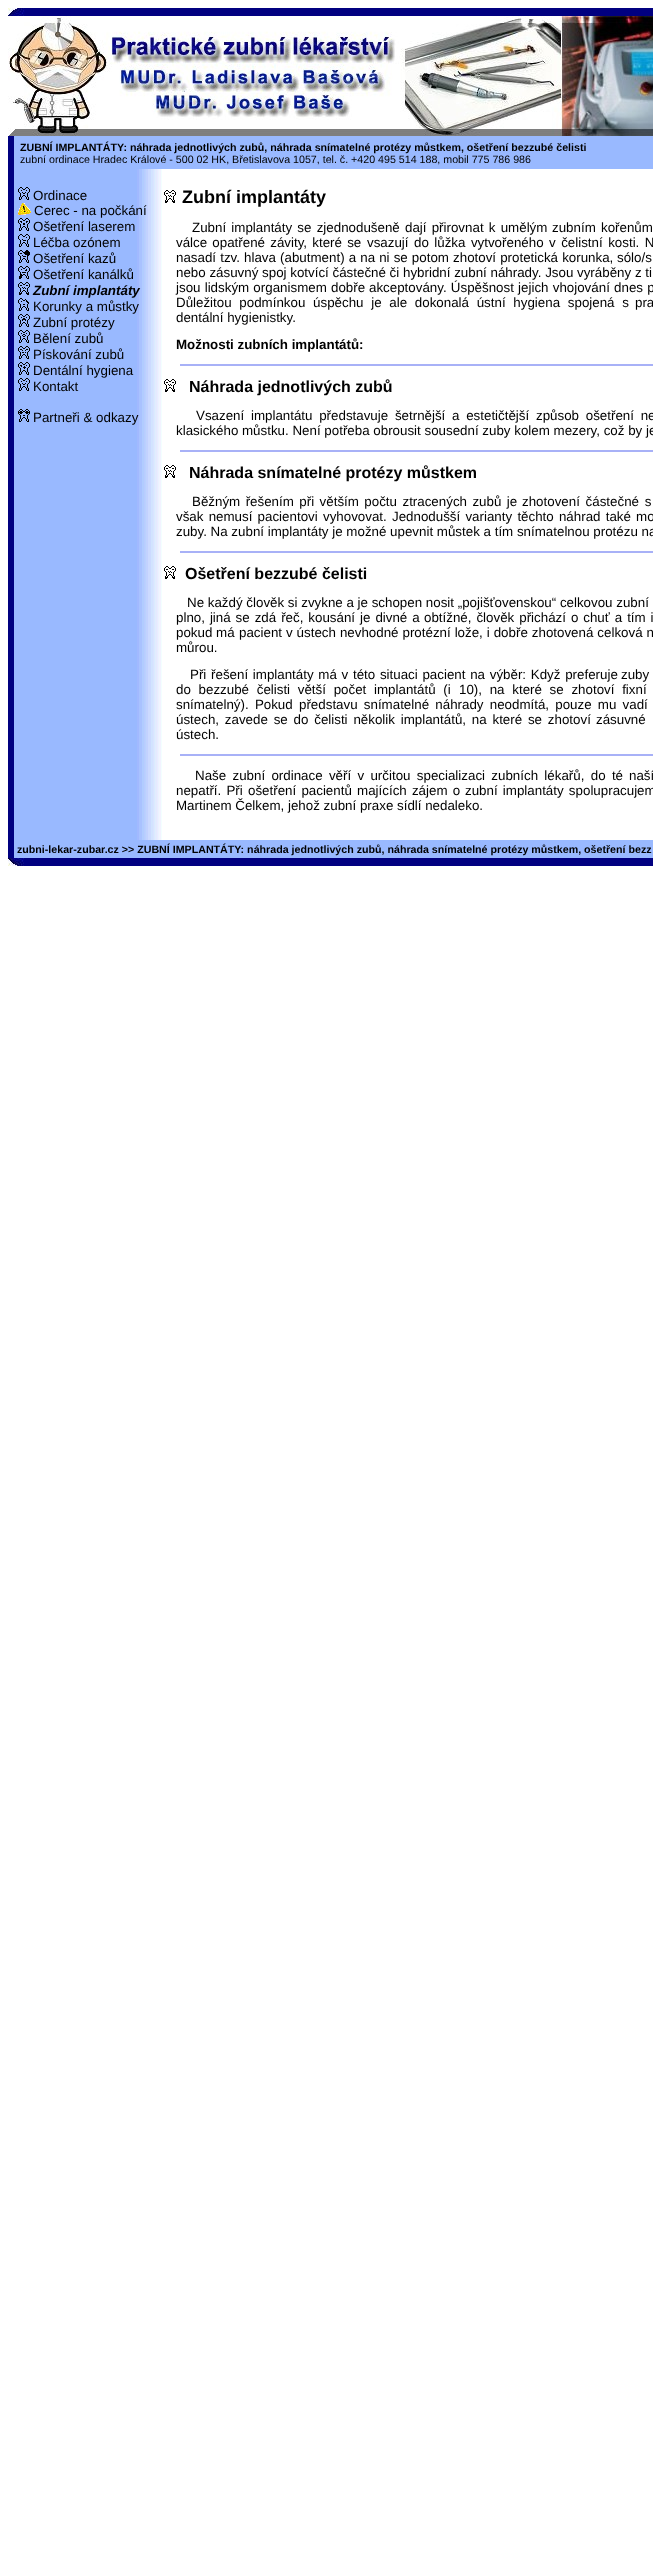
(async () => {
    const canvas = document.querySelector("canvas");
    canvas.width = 653;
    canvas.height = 2571;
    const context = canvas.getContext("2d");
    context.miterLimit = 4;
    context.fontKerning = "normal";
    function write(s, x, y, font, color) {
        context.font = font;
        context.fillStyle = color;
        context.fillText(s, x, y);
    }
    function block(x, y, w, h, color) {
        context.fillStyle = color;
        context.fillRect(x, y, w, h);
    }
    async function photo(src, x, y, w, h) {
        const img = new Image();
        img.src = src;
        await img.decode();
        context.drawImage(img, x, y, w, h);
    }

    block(0, 0, 653, 2571, "rgb(255, 255, 255)");
    await photo("media/1.png", 8, 8, 645, 8);
    await photo("media/2.png", 8, 16, 645, 120);
    block(8, 136, 6, 722, "rgb(0, 0, 128)");
    block(14, 136, 639, 33, "rgb(153, 185, 255)");
    write("ZUBNÍ IMPLANTÁTY: náhrada jednotlivých zubů, náhrada snímatelné protézy můstkem, ošetření bezzubé čelisti", 20, 151, "bold 10.67px Liberation Sans", "rgb(0, 0, 0)");
    write("zubní ordinace Hradec Králové - 500 02 HK, Břetislavova 1057, tel. č. +420 495 514 188, mobil 775 786 986", 20, 163, "10.67px Liberation Sans", "rgb(0, 0, 0)");
    await photo("media/3.png", 14, 169, 148, 18);
    await photo("media/4.png", 14, 187, 148, 653);
    await photo("media/5.png", 18, 187, 12, 13);
    write("Ordinace", 33, 200, "13.35px Liberation Sans", "rgb(0, 0, 0)");
    await photo("media/6.png", 18, 203, 13, 12);
    write("Cerec - na počkání", 34, 215, "13.35px Liberation Sans", "rgb(0, 0, 0)");
    await photo("media/7.png", 18, 218, 12, 13);
    write("Ošetření laserem", 33, 231, "13.35px Liberation Sans", "rgb(0, 0, 0)");
    await photo("media/8.png", 18, 234, 12, 13);
    write("Léčba ozónem", 33, 247, "13.35px Liberation Sans", "rgb(0, 0, 0)");
    await photo("media/9.png", 18, 250, 12, 13);
    write("Ošetření kazů", 33, 263, "13.35px Liberation Sans", "rgb(0, 0, 0)");
    await photo("media/10.png", 18, 266, 12, 13);
    write("Ošetření kanálků", 33, 279, "13.35px Liberation Sans", "rgb(0, 0, 0)");
    await photo("media/11.png", 18, 282, 12, 13);
    write("Zubní implantáty", 33, 295, "italic bold 13.35px Liberation Sans", "rgb(0, 0, 0)");
    await photo("media/12.png", 18, 298, 11, 13);
    write("Korunky a můstky", 33, 311, "13.35px Liberation Sans", "rgb(0, 0, 0)");
    await photo("media/13.png", 18, 314, 12, 13);
    write("Zubní protézy", 33, 327, "13.35px Liberation Sans", "rgb(0, 0, 0)");
    await photo("media/14.png", 18, 330, 12, 13);
    write("Bělení zubů", 33, 343, "13.35px Liberation Sans", "rgb(0, 0, 0)");
    await photo("media/15.png", 18, 346, 12, 13);
    write("Pískování zubů", 33, 359, "13.35px Liberation Sans", "rgb(0, 0, 0)");
    await photo("media/16.png", 18, 362, 12, 13);
    write("Dentální hygiena", 33, 375, "13.35px Liberation Sans", "rgb(0, 0, 0)");
    await photo("media/5.png", 18, 378, 12, 13);
    write("Kontakt", 33, 391, "13.35px Liberation Sans", "rgb(0, 0, 0)");
    await photo("media/17.png", 18, 409, 12, 13);
    write("Partneři & odkazy", 33, 422, "13.35px Liberation Sans", "rgb(0, 0, 0)");
    await photo("media/18.png", 164, 190, 12, 13);
    write("Zubní implantáty", 182, 203, "bold 18px Liberation Sans", "rgb(0, 0, 0)");
    context.wordSpacing = "1.5px";
    write("Zubní implantáty se zjednodušeně dají přirovnat k umělým", 192, 232, "13.35px Liberation Sans", "rgb(0, 0, 0)");
    write("zubním kořenům", 552, 232, "13.35px Liberation Sans", "rgb(0, 0, 0)");
    write("válce opatřené závity, které se", 176, 247, "13.35px Liberation Sans", "rgb(0, 0, 0)");
    context.wordSpacing = "1.75px";
    write("vsazují do lůžka vytvořeného v čelistní kosti. N", 367, 247, "13.35px Liberation Sans", "rgb(0, 0, 0)");
    context.wordSpacing = "0.4px";
    write("nasadí tzv. hlava (abutment) a na ni se potom zhotoví protetická korunka,", 176, 262, "13.35px Liberation Sans", "rgb(0, 0, 0)");
    context.wordSpacing = "0px";
    write("sólo/s", 617, 262, "13.35px Liberation Sans", "rgb(0, 0, 0)");
    write("nebo zásuvný spoj kotvící částečné či hybridní zubní náhrady. Jsou vyráběny z ti", 176, 277, "13.35px Liberation Sans", "rgb(0, 0, 0)");
    context.wordSpacing = "0.5px";
    write("jsou lidským organismem dobře", 176, 292, "13.35px Liberation Sans", "rgb(0, 0, 0)");
    write("akceptovány. Úspěšnost jejich vhojování dnes p", 369, 292, "13.35px Liberation Sans", "rgb(0, 0, 0)");
    context.wordSpacing = "4px";
    write("Důležitou podmínkou úspěchu je ale dokonalá ústní hygiena spojená s", 176, 307, "13.35px Liberation Sans", "rgb(0, 0, 0)");
    write("pra", 635, 307, "13.35px Liberation Sans", "rgb(0, 0, 0)");
    context.wordSpacing = "0px";
    write("dentální hygienistky.", 176, 322, "13.35px Liberation Sans", "rgb(0, 0, 0)");
    write("Možnosti zubních implantátů:", 176, 349, "bold 13.35px Liberation Sans", "rgb(0, 0, 0)");
    block(180, 364, 473, 2, "rgb(168, 177, 247)");
    await photo("media/18.png", 164, 379, 12, 13);
    write("Náhrada jednotlivých zubů", 189, 392, "bold 16px Liberation Sans", "rgb(0, 0, 0)");
    context.wordSpacing = "3px";
    write("Vsazení implantátu představuje šetrnější a estetičtější", 196, 420, "13.35px Liberation Sans", "rgb(0, 0, 0)");
    write("způsob ošetření ne", 536, 420, "13.35px Liberation Sans", "rgb(0, 0, 0)");
    context.wordSpacing = "0px";
    write("klasického můstku. Není potřeba obrousit sousední zuby kolem mezery, což by je", 176, 435, "13.35px Liberation Sans", "rgb(0, 0, 0)");
    block(180, 450, 473, 2, "rgb(168, 177, 247)");
    await photo("media/18.png", 164, 465, 12, 13);
    write("Náhrada snímatelné protézy můstkem", 189, 478, "bold 16px Liberation Sans", "rgb(0, 0, 0)");
    context.wordSpacing = "1.75px";
    write("Běžným řešením při větším počtu ztracených zubů je", 192, 506, "13.35px Liberation Sans", "rgb(0, 0, 0)");
    context.wordSpacing = "2px";
    write("zhotovení částečné s", 522, 506, "13.35px Liberation Sans", "rgb(0, 0, 0)");
    context.wordSpacing = "1.5px";
    write("však nemusí pacientovi", 176, 521, "13.35px Liberation Sans", "rgb(0, 0, 0)");
    write("vyhovovat. Jednodušší varianty těchto náhrad také mo", 323, 521, "13.35px Liberation Sans", "rgb(0, 0, 0)");
    context.wordSpacing = "0px";
    write("zuby. Na zubní implantáty je možné upevnit můstek a tím snímatelnou protézu na", 176, 536, "13.35px Liberation Sans", "rgb(0, 0, 0)");
    block(180, 551, 473, 2, "rgb(168, 177, 247)");
    await photo("media/18.png", 164, 566, 12, 13);
    write("Ošetření bezzubé čelisti", 185, 579, "bold 16px Liberation Sans", "rgb(0, 0, 0)");
    write("Ne každý člověk si zvykne a je schopen nosit „pojišťovenskou“ celkovou zubní", 187, 607, "13.35px Liberation Sans", "rgb(0, 0, 0)");
    context.wordSpacing = "1.25px";
    write("plno, jiná se zdá řeč, kousání je divné a", 176, 622, "13.35px Liberation Sans", "rgb(0, 0, 0)");
    write("obtížné, člověk přichází o chuť a tím i", 424, 622, "13.35px Liberation Sans", "rgb(0, 0, 0)");
    context.wordSpacing = "0px";
    write("pokud má", 176, 637, "13.35px Liberation Sans", "rgb(0, 0, 0)");
    context.wordSpacing = "0.25px";
    write("pacient v ústech nevhodné protézní lože, i dobře zhotovená celková n", 239, 637, "13.35px Liberation Sans", "rgb(0, 0, 0)");
    context.wordSpacing = "0px";
    write("můrou.", 176, 652, "13.35px Liberation Sans", "rgb(0, 0, 0)");
    context.wordSpacing = "1px";
    write("Při řešení implantáty má v této situaci pacient na výběr: Když preferuje", 190, 679, "13.35px Liberation Sans", "rgb(0, 0, 0)");
    write("zuby", 621, 679, "13.35px Liberation Sans", "rgb(0, 0, 0)");
    context.wordSpacing = "4px";
    write("do bezzubé čelisti větší počet implantátů (i", 176, 694, "13.35px Liberation Sans", "rgb(0, 0, 0)");
    write("10), na které se zhotoví fixní", 459, 694, "13.35px Liberation Sans", "rgb(0, 0, 0)");
    context.wordSpacing = "2.5px";
    write("snímatelný). Pokud", 176, 709, "13.35px Liberation Sans", "rgb(0, 0, 0)");
    write("představu snímatelné náhrady neodmítá, pouze mu vadí", 299, 709, "13.35px Liberation Sans", "rgb(0, 0, 0)");
    context.wordSpacing = "2.1px";
    write("ústech, zavede se do čelisti několik implantátů, na které se zhotoví", 176, 724, "13.35px Liberation Sans", "rgb(0, 0, 0)");
    write("zásuvné", 596, 724, "13.35px Liberation Sans", "rgb(0, 0, 0)");
    context.wordSpacing = "0px";
    write("ústech.", 176, 739, "13.35px Liberation Sans", "rgb(0, 0, 0)");
    block(180, 754, 473, 2, "rgb(168, 177, 247)");
    context.wordSpacing = "2.6px";
    write("Naše zubní ordinace věří v určitou specializaci zubních lékařů, do té", 195, 780, "13.35px Liberation Sans", "rgb(0, 0, 0)");
    write("naší", 629, 780, "13.35px Liberation Sans", "rgb(0, 0, 0)");
    context.wordSpacing = "1.5px";
    write("nepatří. Při ošetření pacientů majících zájem o", 176, 795, "13.35px Liberation Sans", "rgb(0, 0, 0)");
    write("zubní implantáty spolupracujem", 465, 795, "13.35px Liberation Sans", "rgb(0, 0, 0)");
    context.wordSpacing = "0px";
    write("Martinem Čelkem, jehož zubní praxe sídlí nedaleko.", 176, 810, "13.35px Liberation Sans", "rgb(0, 0, 0)");
    block(14, 840, 639, 18, "rgb(153, 185, 255)");
    write("zubni-lekar-zubar.cz >> ZUBNÍ IMPLANTÁTY: náhrada jednotlivých zubů, náhrada snímatelné protézy můstkem, ošetření bezz", 17, 853, "bold 10.67px Liberation Sans", "rgb(0, 0, 0)");
    await photo("media/19.png", 8, 858, 645, 8);
})();
